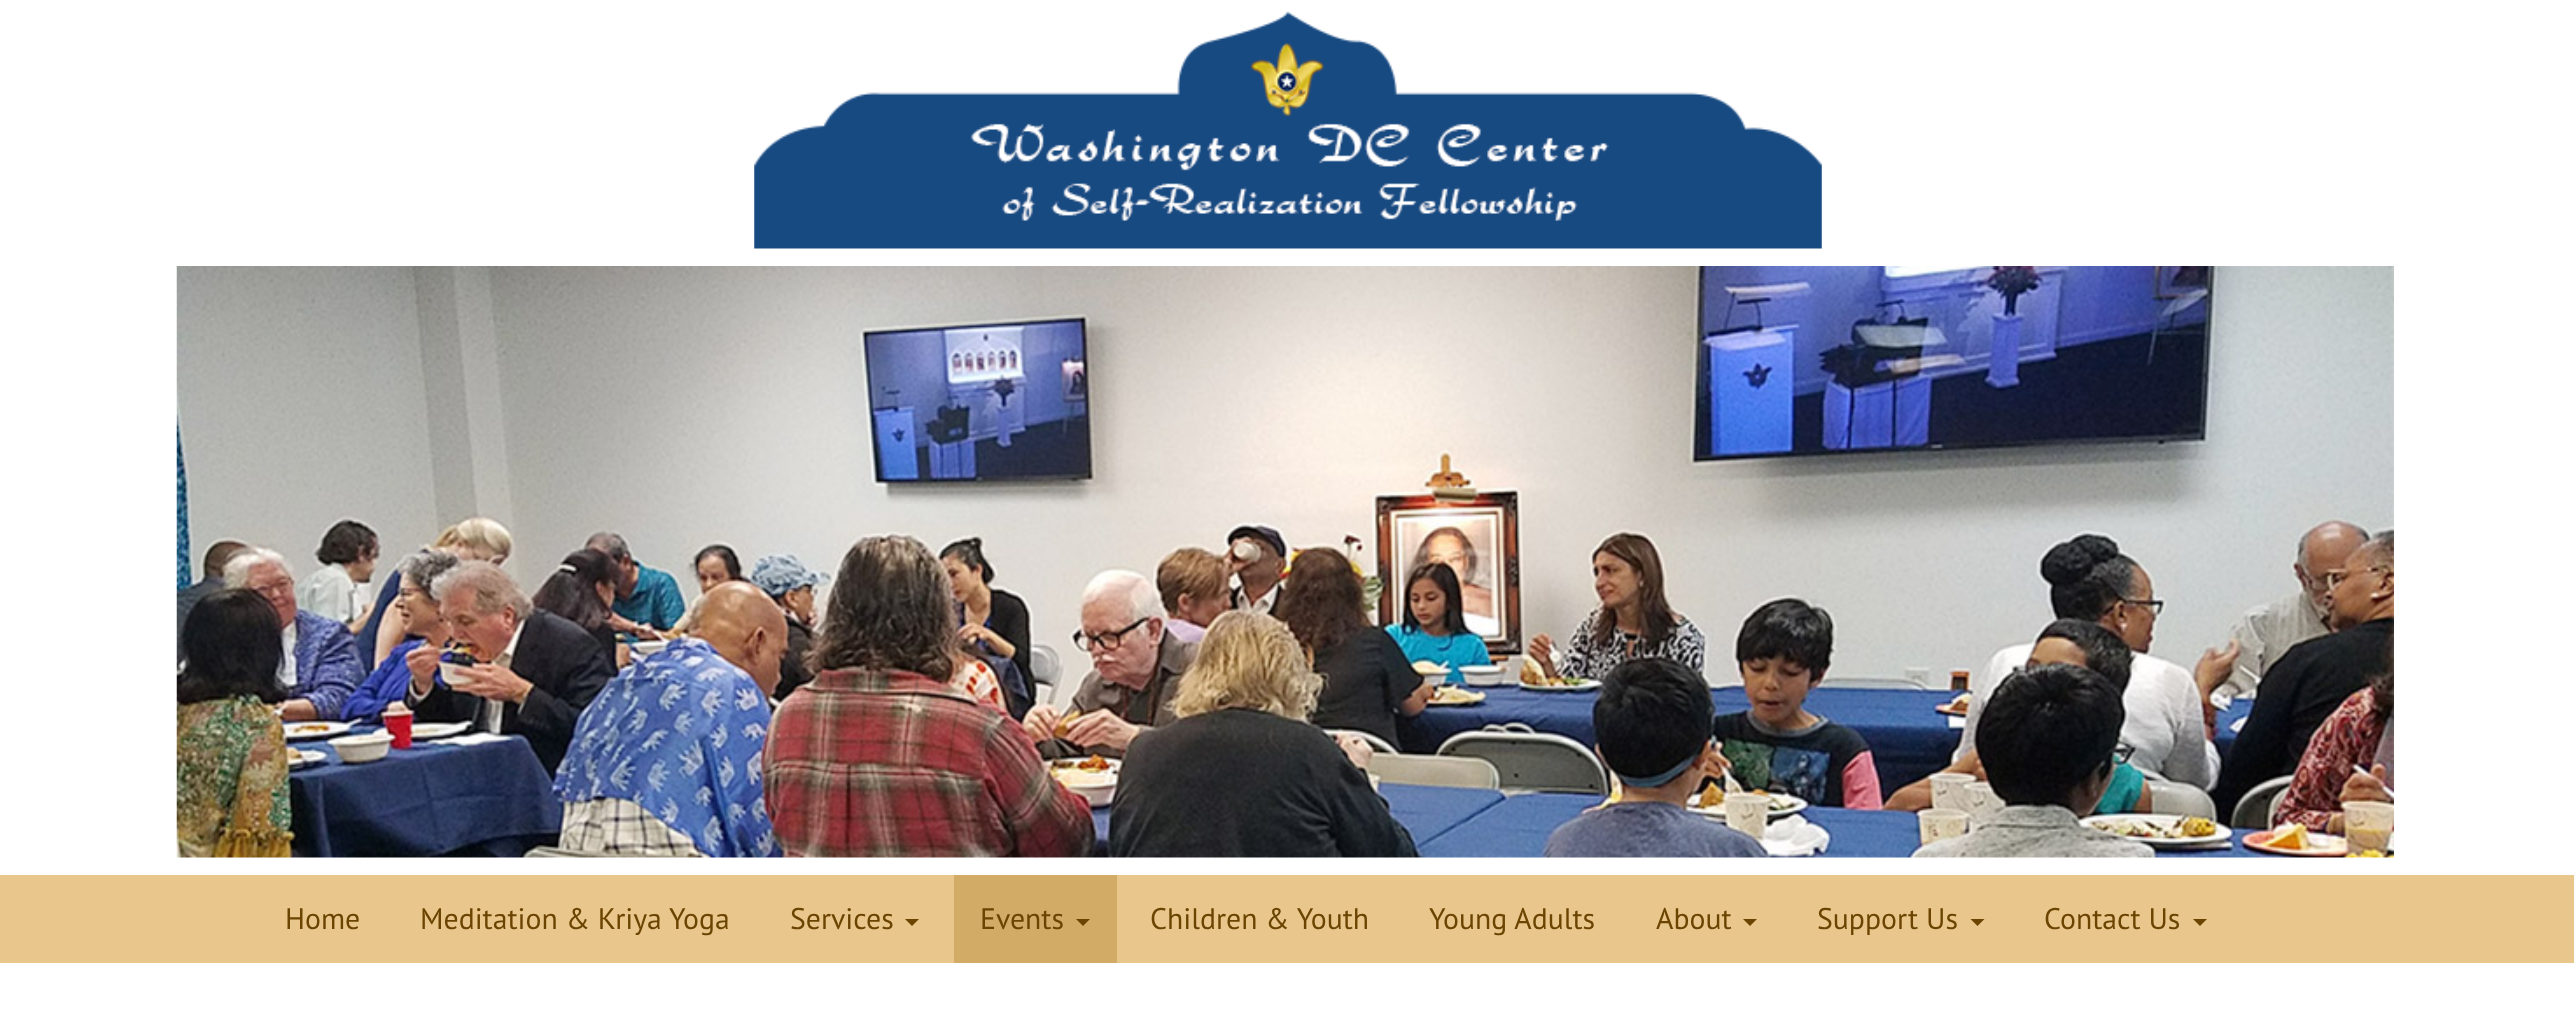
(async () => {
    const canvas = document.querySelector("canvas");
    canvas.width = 2574;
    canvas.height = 1011;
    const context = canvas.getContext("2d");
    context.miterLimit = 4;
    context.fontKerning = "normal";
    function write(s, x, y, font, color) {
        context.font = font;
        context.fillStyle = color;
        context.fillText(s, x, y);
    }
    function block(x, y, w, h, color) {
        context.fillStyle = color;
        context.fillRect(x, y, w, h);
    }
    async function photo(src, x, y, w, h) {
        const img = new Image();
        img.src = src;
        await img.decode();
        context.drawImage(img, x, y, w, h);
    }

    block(0, 0, 2574, 1011, "rgb(255, 255, 255)");
    await photo("media/1.png", 754, 11, 1068, 238);
    await photo("media/2.png", 176, 266, 2218, 592);
    block(0, 875, 2574, 88, "rgb(233, 199, 140)");
    write("Home", 285, 929, "29.75px PT Sans", "rgb(107, 68, 2)");
    write("Meditation & Kriya Yoga", 420, 929, "29.75px PT Sans", "rgb(107, 68, 2)");
    write("Services", 790, 929, "29.75px PT Sans", "rgb(107, 68, 2)");
    context.beginPath();
    context.moveTo(905, 919);
    context.lineTo(919, 919);
    context.lineTo(912, 926);
    context.closePath();
    context.fill();
    block(954, 875, 163, 88, "rgb(210, 171, 103)");
    write("Events", 980, 929, "29.75px PT Sans", "rgb(107, 68, 2)");
    context.beginPath();
    context.moveTo(1076, 919);
    context.lineTo(1090, 919);
    context.lineTo(1083, 926);
    context.closePath();
    context.fill();
    write("Children & Youth", 1150, 929, "29.75px PT Sans", "rgb(107, 68, 2)");
    write("Young Adults", 1429, 929, "29.75px PT Sans", "rgb(107, 68, 2)");
    write("About", 1656, 929, "29.75px PT Sans", "rgb(107, 68, 2)");
    context.beginPath();
    context.moveTo(1743, 919);
    context.lineTo(1757, 919);
    context.lineTo(1750, 926);
    context.closePath();
    context.fill();
    write("Support Us", 1817, 929, "29.75px PT Sans", "rgb(107, 68, 2)");
    context.beginPath();
    context.moveTo(1970.5, 919);
    context.lineTo(1984.5, 919);
    context.lineTo(1977.5, 926);
    context.closePath();
    context.fill();
    write("Contact Us", 2044, 929, "29.75px PT Sans", "rgb(107, 68, 2)");
    context.beginPath();
    context.moveTo(2193, 919);
    context.lineTo(2207, 919);
    context.lineTo(2200, 926);
    context.closePath();
    context.fill();
})();
